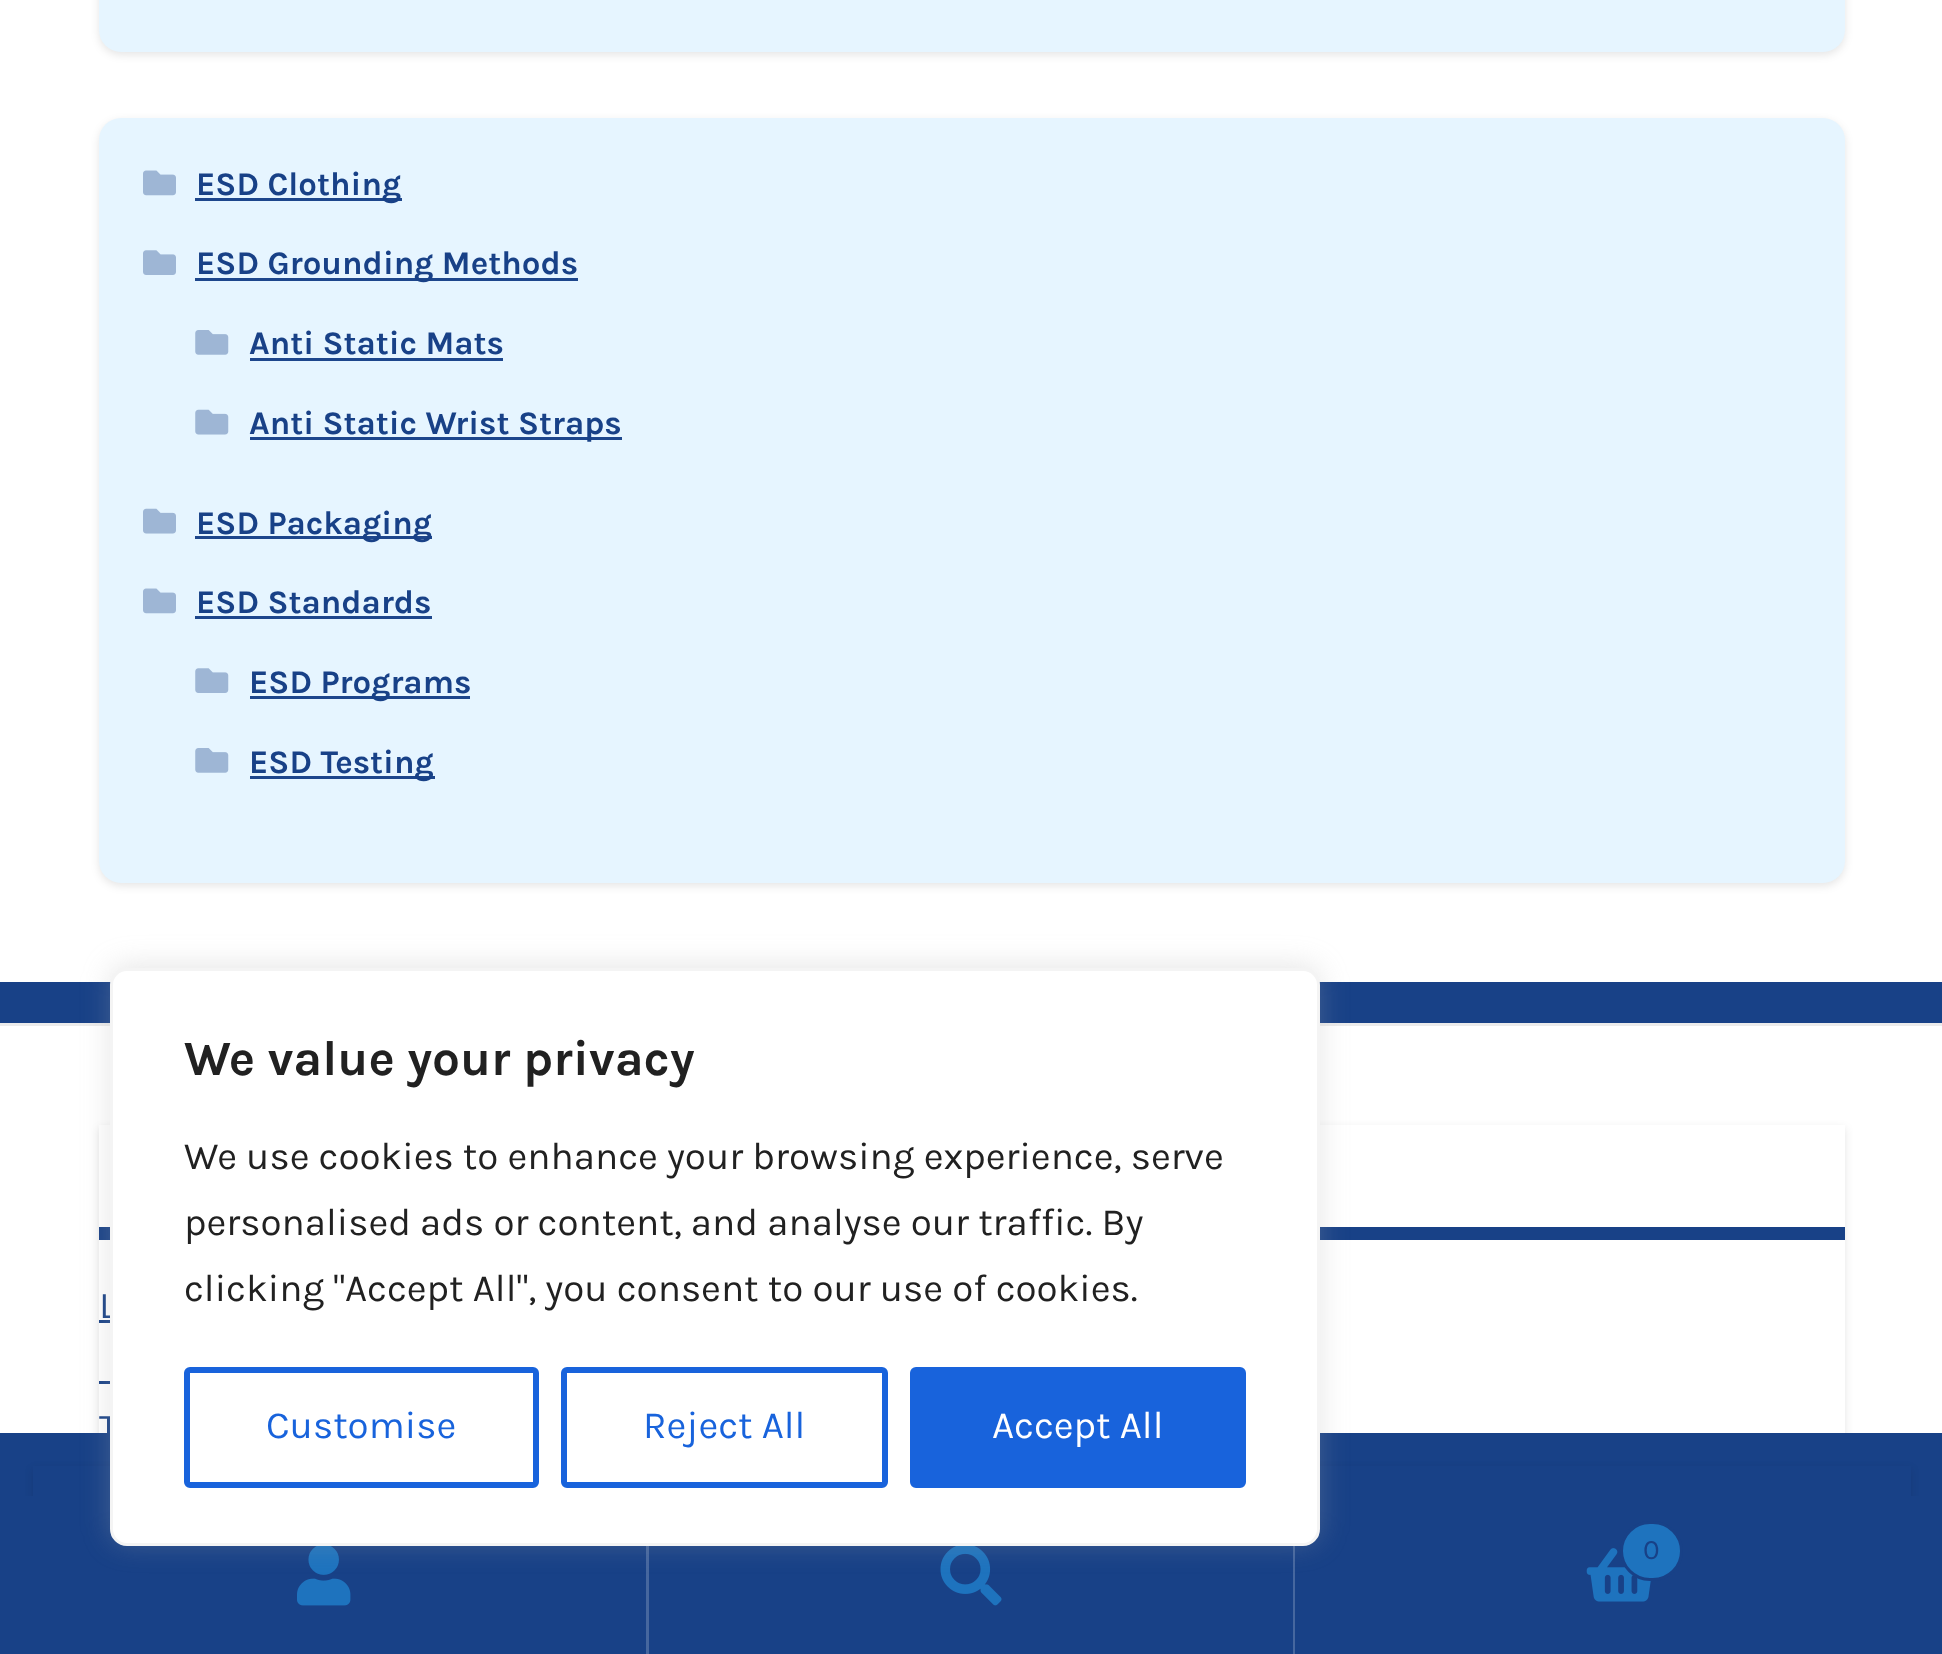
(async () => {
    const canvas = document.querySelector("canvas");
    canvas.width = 1942;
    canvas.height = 1654;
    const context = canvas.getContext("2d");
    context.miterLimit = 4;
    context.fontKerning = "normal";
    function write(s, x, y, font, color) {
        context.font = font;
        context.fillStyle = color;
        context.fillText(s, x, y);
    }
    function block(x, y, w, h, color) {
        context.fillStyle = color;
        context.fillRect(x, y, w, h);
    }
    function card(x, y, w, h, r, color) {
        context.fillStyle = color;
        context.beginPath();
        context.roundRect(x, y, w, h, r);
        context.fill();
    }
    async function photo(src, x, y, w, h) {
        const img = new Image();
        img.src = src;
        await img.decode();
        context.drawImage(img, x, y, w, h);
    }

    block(0, 0, 1942, 1654, "rgb(255, 255, 255)");
    block(0, 982, 1942, 41, "rgb(24, 65, 135)");
    context.fillStyle = "rgba(0, 0, 0, 0.1)";
    context.filter = "blur(4px)";
    context.beginPath();
    context.roundRect(99, -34, 1746, 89, 22);
    context.fill();
    context.filter = "none";
    card(99, -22, 1746, 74, 22, "rgb(230, 245, 255)");
    context.fillStyle = "rgba(0, 0, 0, 0.1)";
    context.filter = "blur(4px)";
    context.beginPath();
    context.roundRect(99, 121, 1746, 765, 22);
    context.fill();
    context.filter = "none";
    card(99, 118, 1746, 765, 22, "rgb(230, 245, 255)");
    await photo("media/1.png", 143, 170, 33, 26);
    block(195, 198, 207, 3, "rgb(29, 70, 140)");
    write("ESD Clothing", 196, 195, "bold 33px Karla", "rgb(24, 65, 135)");
    await photo("media/2.png", 143, 250, 33, 25);
    block(195, 278, 383, 3, "rgb(29, 70, 140)");
    write("ESD Grounding Methods", 196, 274, "bold 33px Karla", "rgb(24, 65, 135)");
    await photo("media/3.png", 195, 330, 34, 25);
    write("Anti Static Mats", 249, 354, "bold 33px Karla", "rgb(24, 65, 135)");
    block(250, 358, 253, 3, "rgb(29, 70, 140)");
    await photo("media/4.png", 195, 409, 34, 26);
    block(250, 437, 372, 3, "rgb(29, 70, 140)");
    write("Anti Static Wrist Straps", 249, 434, "bold 33px Karla", "rgb(24, 65, 135)");
    await photo("media/5.png", 143, 508, 33, 26);
    block(195, 536, 237, 3, "rgb(29, 70, 140)");
    write("ESD Packaging", 196, 534, "bold 33px Karla", "rgb(24, 65, 135)");
    await photo("media/1.png", 143, 588, 33, 26);
    write("ESD Standards", 196, 613, "bold 33px Karla", "rgb(24, 65, 135)");
    block(195, 616, 237, 3, "rgb(29, 70, 140)");
    await photo("media/6.png", 195, 668, 34, 25);
    block(250, 696, 220, 3, "rgb(29, 70, 140)");
    write("ESD Programs", 249, 693, "bold 33px Karla", "rgb(24, 65, 135)");
    await photo("media/3.png", 195, 748, 34, 25);
    block(250, 776, 185, 3, "rgb(29, 70, 140)");
    write("ESD Testing", 249, 773, "bold 33px Karla", "rgb(24, 65, 135)");
    block(0, 1023, 1942, 3, "rgb(235, 235, 235)");
    context.save();
    context.beginPath();
    context.moveTo(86, 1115);
    context.lineTo(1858, 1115);
    context.lineTo(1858, 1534);
    context.lineTo(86, 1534);
    context.closePath();
    context.moveTo(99, 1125);
    context.lineTo(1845, 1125);
    context.lineTo(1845, 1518);
    context.lineTo(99, 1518);
    context.closePath();
    context.clip("evenodd");
    context.fillStyle = "rgba(0, 0, 0, 0.1)";
    context.filter = "blur(4px)";
    context.beginPath();
    context.rect(99, 1128, 1746, 393);
    context.fill();
    context.filter = "none";
    context.restore();
    block(99, 1227, 1746, 13, "rgb(24, 65, 135)");
    write("L", 99, 1318, "38px Karla", "rgb(24, 65, 135)");
    block(99, 1320, 11, 3, "rgb(24, 65, 135)");
    block(99, 1381, 11, 3, "rgb(24, 65, 135)");
    write("T", 99, 1440, "38px Karla", "rgb(24, 65, 135)");
    block(0, 1433, 1942, 63, "rgb(24, 65, 135)");
    context.save();
    context.beginPath();
    context.moveTo(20, 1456);
    context.lineTo(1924, 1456);
    context.lineTo(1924, 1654);
    context.lineTo(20, 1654);
    context.closePath();
    context.moveTo(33, 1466);
    context.lineTo(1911, 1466);
    context.lineTo(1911, 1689);
    context.lineTo(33, 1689);
    context.closePath();
    context.clip("evenodd");
    context.fillStyle = "rgba(0, 0, 0, 0.1)";
    context.filter = "blur(4px)";
    context.beginPath();
    context.rect(33, 1469, 1878, 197);
    context.fill();
    context.filter = "none";
    context.restore();
    block(649, 1546, 646, 108, "rgb(24, 65, 135)");
    block(1293, 1546, 2, 108, "rgba(255, 255, 255, 0.2)");
    await photo("media/7.png", 940, 1546, 62, 60);
    block(0, 1496, 646, 158, "rgb(24, 65, 135)");
    block(646, 1546, 3, 108, "rgb(70, 103, 159)");
    await photo("media/8.png", 297, 1546, 54, 60);
    block(1295, 1496, 647, 158, "rgb(24, 65, 135)");
    await photo("media/9.png", 1586, 1548, 65, 54);
    context.fillStyle = "rgb(30, 115, 190)";
    context.beginPath();
    context.roundRect(1621.5, 1522.5, 60, 57, 28.5);
    context.fill();
    context.strokeStyle = "rgb(24, 65, 135)";
    context.lineWidth = 3;
    context.stroke();
    write("0", 1643, 1559, "28px Karla", "rgb(24, 65, 135)");
    context.fillStyle = "rgba(172, 171, 171, 0.3)";
    context.filter = "blur(14px)";
    context.beginPath();
    context.roundRect(110, 965, 1210, 578, 17);
    context.fill();
    context.filter = "none";
    context.fillStyle = "rgb(255, 255, 255)";
    context.beginPath();
    context.roundRect(111.5, 969.5, 1207, 575, 15.5);
    context.fill();
    context.strokeStyle = "rgb(244, 244, 244)";
    context.stroke();
    write("We value your privacy", 184, 1075, "bold 49.5px Karla", "rgb(33, 33, 33)");
    write("We use cookies to enhance your browsing experience, serve", 184, 1169, "38.5px Karla", "rgb(33, 33, 33)");
    write("personalised ads or content, and analyse our traffic. By", 184, 1235, "38.5px Karla", "rgb(33, 33, 33)");
    write("clicking \"Accept All\", you consent to our use of cookies.", 184, 1301, "38.5px Karla", "rgb(33, 33, 33)");
    context.beginPath();
    context.roundRect(187, 1370, 349, 115, 3);
    context.strokeStyle = "rgb(24, 99, 220)";
    context.lineWidth = 6;
    context.stroke();
    write("Customise", 266, 1438, "38.5px Karla", "rgb(24, 99, 220)");
    context.beginPath();
    context.roundRect(564, 1370, 321, 115, 3);
    context.stroke();
    write("Reject All", 643, 1438, "38.5px Karla", "rgb(24, 99, 220)");
    context.beginPath();
    context.roundRect(913, 1370, 330, 115, 3);
    context.fill();
    context.stroke();
    write("Accept All", 992, 1438, "38.5px Karla", "rgb(255, 255, 255)");
})();
